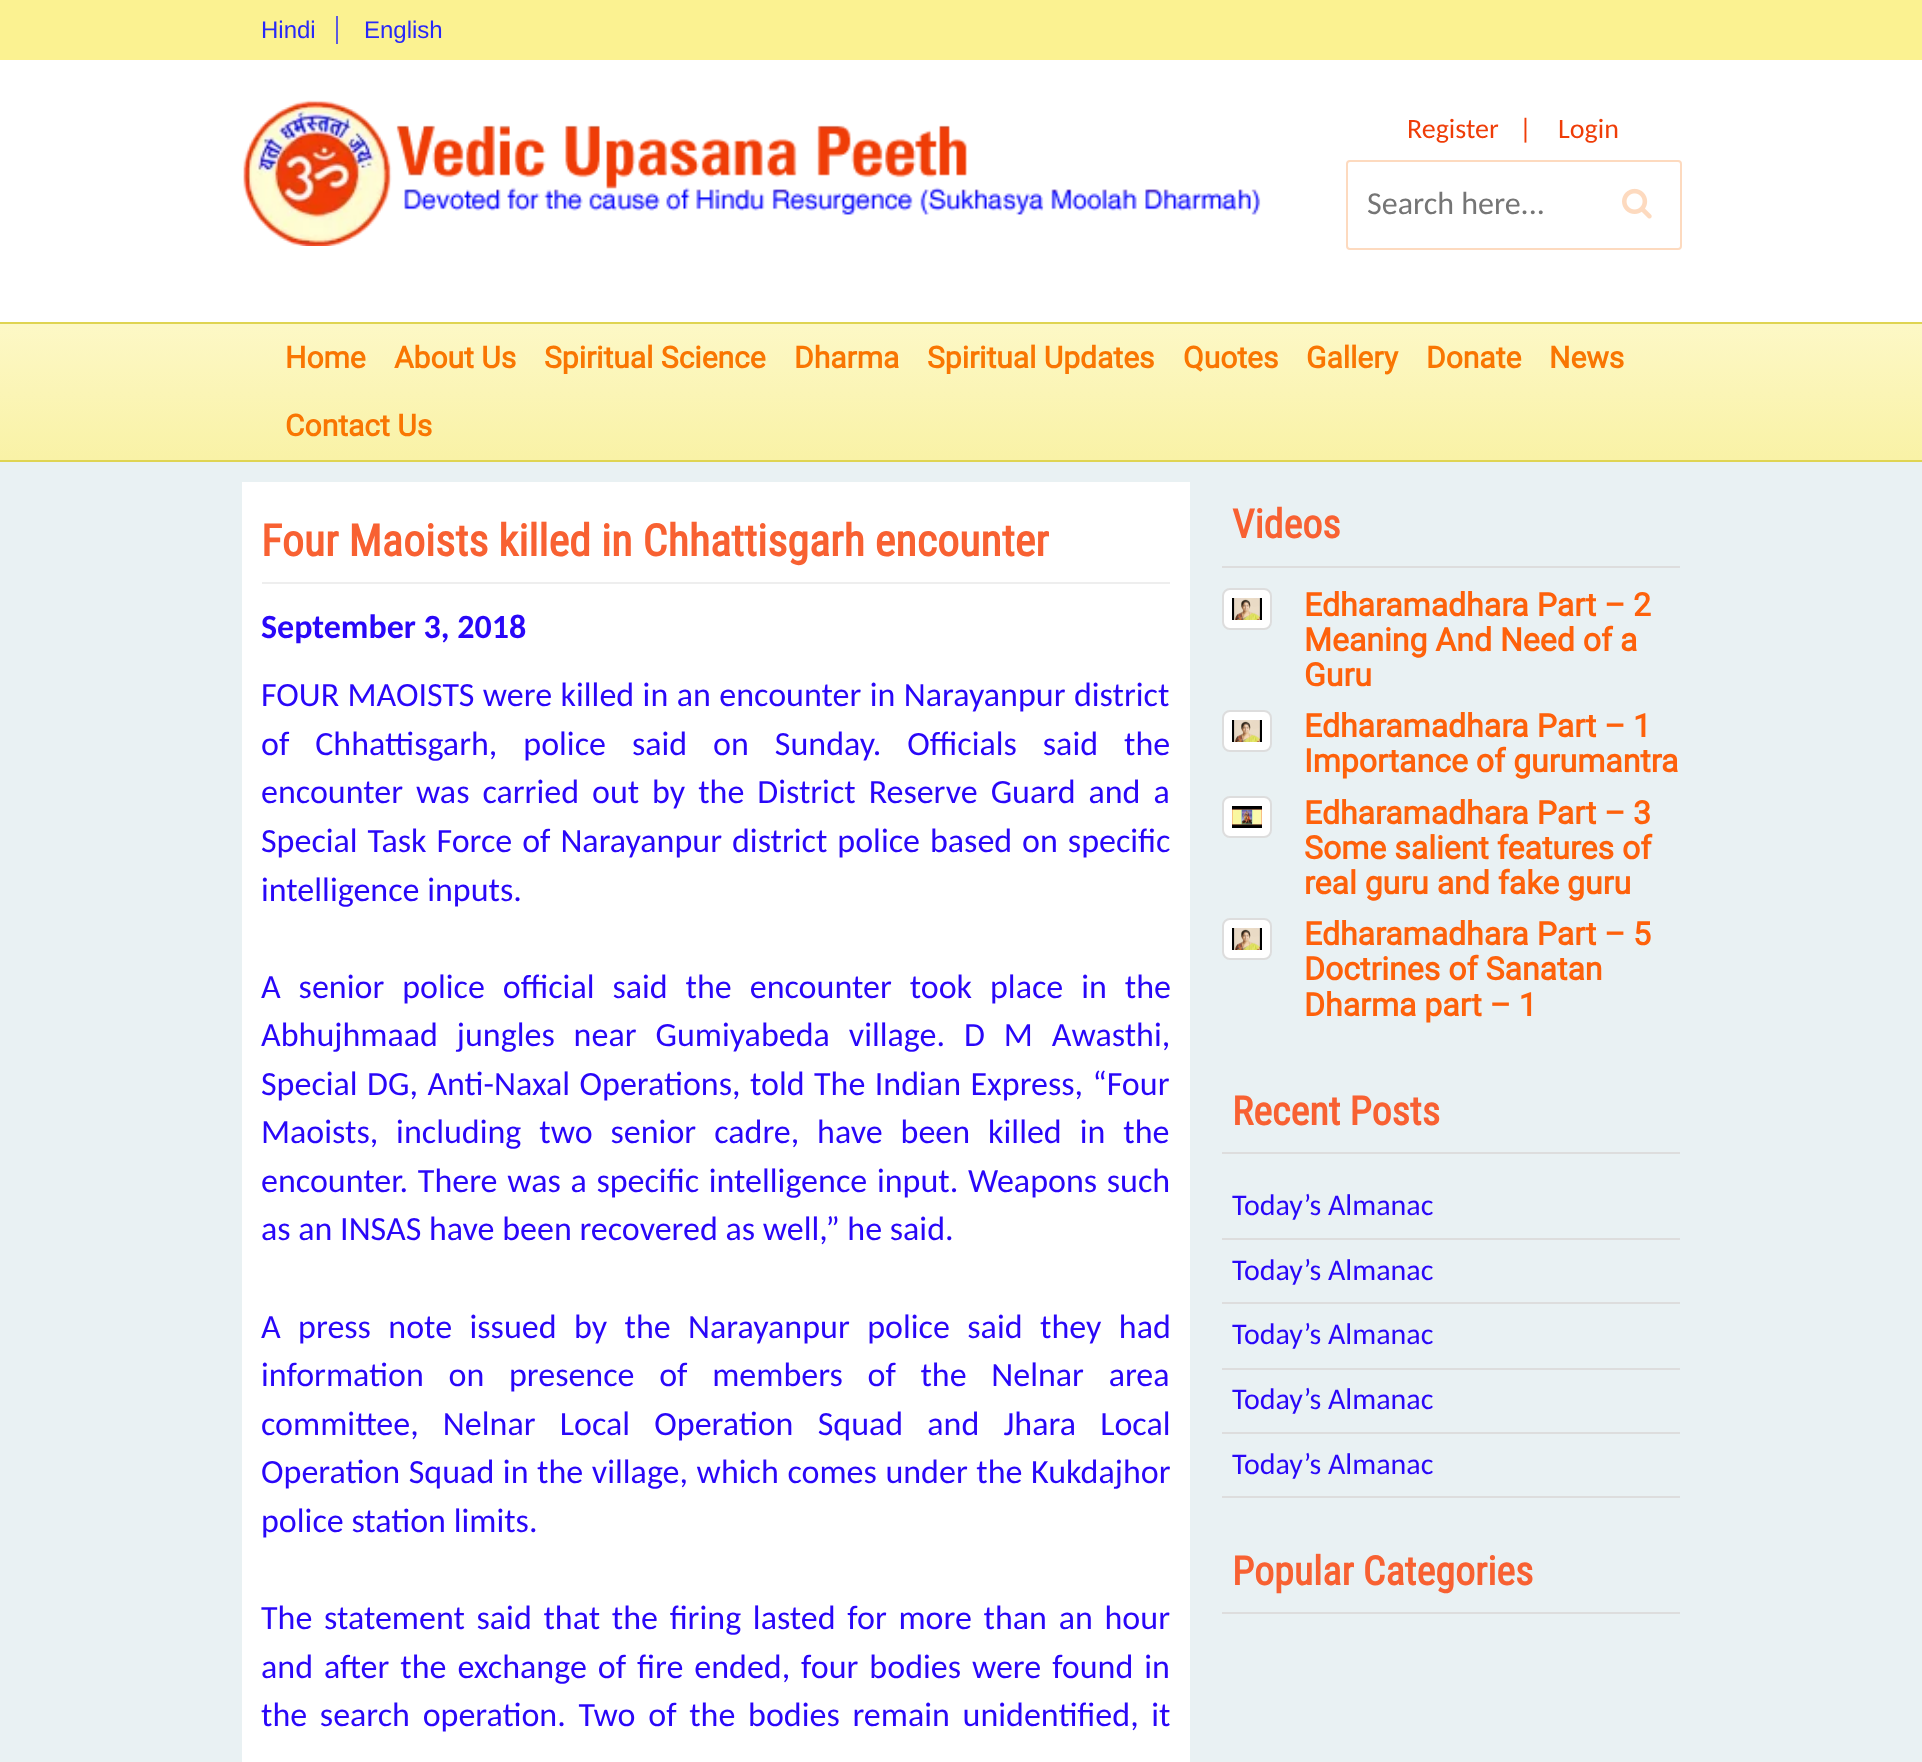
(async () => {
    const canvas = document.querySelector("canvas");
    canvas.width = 1922;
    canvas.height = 1762;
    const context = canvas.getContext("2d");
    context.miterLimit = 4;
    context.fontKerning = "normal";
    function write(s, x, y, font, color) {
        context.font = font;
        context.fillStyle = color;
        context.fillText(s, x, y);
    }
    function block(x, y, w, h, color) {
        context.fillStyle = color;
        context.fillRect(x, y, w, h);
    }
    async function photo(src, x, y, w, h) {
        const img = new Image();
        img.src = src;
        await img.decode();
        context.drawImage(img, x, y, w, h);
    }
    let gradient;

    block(0, 0, 1922, 1762, "rgb(233, 241, 243)");
    block(0, 0, 1922, 60, "rgb(251, 242, 145)");
    write("Hindi", 261, 38, "24px Liberation Sans", "rgb(40, 40, 249)");
    block(336, 16, 2, 28, "rgb(93, 91, 223)");
    write("English", 364, 38, "24px Liberation Sans", "rgb(40, 40, 249)");
    block(0, 60, 1922, 262, "rgb(255, 255, 255)");
    await photo("media/1.png", 243, 100, 1018, 146);
    write("Register", 1407, 138, "28px Carlito", "rgb(239, 61, 8)");
    write("|", 1519, 138, "28px Carlito", "rgb(239, 61, 8)");
    write("Login", 1558, 138, "28px Carlito", "rgb(239, 61, 8)");
    context.beginPath();
    context.roundRect(1347, 161, 334, 88, 3);
    context.strokeStyle = "rgb(253, 218, 191)";
    context.lineWidth = 2;
    context.stroke();
    write("Search here...", 1367, 214, "32px Carlito", "rgb(117, 117, 117)");
    await photo("media/2.png", 1622, 188, 30, 31);
    gradient = context.createLinearGradient(961, 324, 961, 460);
    gradient.addColorStop(0, "rgb(253, 248, 198)");
    gradient.addColorStop(1, "rgb(249, 242, 166)");
    context.fillStyle = gradient;
    context.fillRect(0, 324, 1922, 136);
    block(0, 322, 1922, 2, "rgb(223, 212, 82)");
    block(0, 460, 1922, 2, "rgb(223, 212, 82)");
    write("Home", 285, 368, "bold 30px Roboto", "rgb(249, 118, 2)");
    write("About Us", 394, 368, "bold 30px Roboto", "rgb(249, 118, 2)");
    write("Spiritual Science", 544, 368, "bold 30px Roboto", "rgb(249, 118, 2)");
    write("Dharma", 794, 368, "bold 30px Roboto", "rgb(249, 118, 2)");
    write("Spiritual Updates", 927, 368, "bold 30px Roboto", "rgb(249, 118, 2)");
    write("Quotes", 1183, 368, "bold 30px Roboto", "rgb(249, 118, 2)");
    write("Gallery", 1306, 368, "bold 30px Roboto", "rgb(249, 118, 2)");
    write("Donate", 1426, 368, "bold 30px Roboto", "rgb(249, 118, 2)");
    write("News", 1549, 368, "bold 30px Roboto", "rgb(249, 118, 2)");
    write("Contact Us", 285, 436, "bold 30px Roboto", "rgb(249, 118, 2)");
    block(242, 482, 948, 1280, "rgb(255, 255, 255)");
    write("Four Maoists killed in Chhattisgarh encounter", 261, 556, "bold 44px Roboto Condensed", "rgb(248, 97, 50)");
    block(262, 582, 908, 2, "rgb(238, 238, 238)");
    write("September 3, 2018", 261, 638, "bold 34px Carlito", "rgb(41, 7, 248)");
    context.wordSpacing = "0.75px";
    write("FOUR MAOISTS were killed in an encounter in Narayanpur district", 261, 706, "34px Carlito", "rgb(41, 7, 248)");
    context.wordSpacing = "18.25px";
    write("of Chhattisgarh, police said on Sunday. Officials said the", 261, 755, "34px Carlito", "rgb(41, 7, 248)");
    context.wordSpacing = "5.25px";
    write("encounter was carried out by the District Reserve Guard and a", 261, 803, "34px Carlito", "rgb(41, 7, 248)");
    context.wordSpacing = "2.25px";
    write("Special Task Force of Narayanpur district police based on specific", 261, 852, "34px Carlito", "rgb(41, 7, 248)");
    context.wordSpacing = "0px";
    write("intelligence inputs.", 261, 901, "34px Carlito", "rgb(41, 7, 248)");
    context.wordSpacing = "10.25px";
    write("A senior police official said the encounter took place in the", 261, 998, "34px Carlito", "rgb(41, 7, 248)");
    context.wordSpacing = "11.25px";
    write("Abhujhmaad jungles near Gumiyabeda village. D M Awasthi,", 261, 1046, "34px Carlito", "rgb(41, 7, 248)");
    context.wordSpacing = "1.75px";
    write("Special DG, Anti-Naxal Operations, told The Indian Express, “Four", 261, 1095, "34px Carlito", "rgb(41, 7, 248)");
    context.wordSpacing = "10.25px";
    write("Maoists, including two senior cadre, have been killed in the", 261, 1143, "34px Carlito", "rgb(41, 7, 248)");
    context.wordSpacing = "2px";
    write("encounter. There was a specific intelligence input. Weapons such", 261, 1192, "34px Carlito", "rgb(41, 7, 248)");
    context.wordSpacing = "0px";
    write("as an INSAS have been recovered as well,” he said.", 261, 1240, "34px Carlito", "rgb(41, 7, 248)");
    context.wordSpacing = "9.75px";
    write("A press note issued by the Narayanpur police said they had", 261, 1338, "34px Carlito", "rgb(41, 7, 248)");
    context.wordSpacing = "17px";
    write("information on presence of members of the Nelnar area", 261, 1386, "34px Carlito", "rgb(41, 7, 248)");
    context.wordSpacing = "16.5px";
    write("committee, Nelnar Local Operation Squad and Jhara Local", 261, 1435, "34px Carlito", "rgb(41, 7, 248)");
    context.wordSpacing = "0.9px";
    write("Operation Squad in the village, which comes under the Kukdajhor", 261, 1483, "34px Carlito", "rgb(41, 7, 248)");
    context.wordSpacing = "0px";
    write("police station limits.", 261, 1532, "34px Carlito", "rgb(41, 7, 248)");
    context.wordSpacing = "4px";
    write("The statement said that the firing lasted for more than an hour", 261, 1629, "34px Carlito", "rgb(41, 7, 248)");
    context.wordSpacing = "3.25px";
    write("and after the exchange of fire ended, four bodies were found in", 261, 1678, "34px Carlito", "rgb(41, 7, 248)");
    context.wordSpacing = "5px";
    write("the search operation. Two of the bodies remain unidentified, it", 261, 1726, "34px Carlito", "rgb(41, 7, 248)");
    block(1222, 566, 458, 2, "rgb(221, 221, 221)");
    context.wordSpacing = "0px";
    write("Videos", 1232, 538, "bold 40px Roboto Condensed", "rgb(248, 97, 50)");
    context.fillStyle = "rgb(255, 255, 255)";
    context.beginPath();
    context.roundRect(1223, 589, 48, 40, 7);
    context.fill();
    context.strokeStyle = "rgb(221, 221, 221)";
    context.stroke();
    await photo("media/3.png", 1232, 598, 30, 22);
    write("Edharamadhara Part – 2", 1304, 616, "bold 32px Roboto", "rgb(254, 97, 11)");
    write("Meaning And Need of a", 1304, 651, "bold 32px Roboto", "rgb(254, 97, 11)");
    write("Guru", 1304, 686, "bold 32px Roboto", "rgb(254, 97, 11)");
    context.fillStyle = "rgb(255, 255, 255)";
    context.beginPath();
    context.roundRect(1223, 711, 48, 40, 7);
    context.fill();
    context.stroke();
    await photo("media/3.png", 1232, 720, 30, 22);
    write("Edharamadhara Part – 1", 1304, 737, "bold 32px Roboto", "rgb(254, 97, 11)");
    write("Importance of gurumantra", 1304, 772, "bold 32px Roboto", "rgb(254, 97, 11)");
    context.fillStyle = "rgb(255, 255, 255)";
    context.beginPath();
    context.roundRect(1223, 797, 48, 40, 7);
    context.fill();
    context.stroke();
    await photo("media/4.png", 1232, 806, 30, 22);
    write("Edharamadhara Part – 3", 1304, 824, "bold 32px Roboto", "rgb(254, 97, 11)");
    write("Some salient features of", 1304, 859, "bold 32px Roboto", "rgb(254, 97, 11)");
    write("real guru and fake guru", 1304, 894, "bold 32px Roboto", "rgb(254, 97, 11)");
    context.fillStyle = "rgb(255, 255, 255)";
    context.beginPath();
    context.roundRect(1223, 919, 48, 40, 7);
    context.fill();
    context.stroke();
    await photo("media/3.png", 1232, 928, 30, 22);
    write("Edharamadhara Part – 5", 1304, 945, "bold 32px Roboto", "rgb(254, 97, 11)");
    write("Doctrines of Sanatan", 1304, 980, "bold 32px Roboto", "rgb(254, 97, 11)");
    write("Dharma part – 1", 1304, 1016, "bold 32px Roboto", "rgb(254, 97, 11)");
    block(1222, 1152, 458, 2, "rgb(221, 221, 221)");
    write("Recent Posts", 1232, 1125, "bold 40px Roboto Condensed", "rgb(248, 97, 50)");
    block(1222, 1238, 458, 2, "rgb(221, 221, 221)");
    write("Today’s Almanac", 1232, 1215, "30px Carlito", "rgb(41, 7, 248)");
    block(1222, 1302, 458, 2, "rgb(221, 221, 221)");
    write("Today’s Almanac", 1232, 1280, "30px Carlito", "rgb(41, 7, 248)");
    block(1222, 1368, 458, 2, "rgb(221, 221, 221)");
    write("Today’s Almanac", 1232, 1344, "30px Carlito", "rgb(41, 7, 248)");
    block(1222, 1432, 458, 2, "rgb(221, 221, 221)");
    write("Today’s Almanac", 1232, 1409, "30px Carlito", "rgb(41, 7, 248)");
    block(1222, 1496, 458, 2, "rgb(221, 221, 221)");
    write("Today’s Almanac", 1232, 1474, "30px Carlito", "rgb(41, 7, 248)");
    block(1222, 1612, 458, 2, "rgb(221, 221, 221)");
    write("Popular Categories", 1232, 1585, "bold 40px Roboto Condensed", "rgb(248, 97, 50)");
})();
